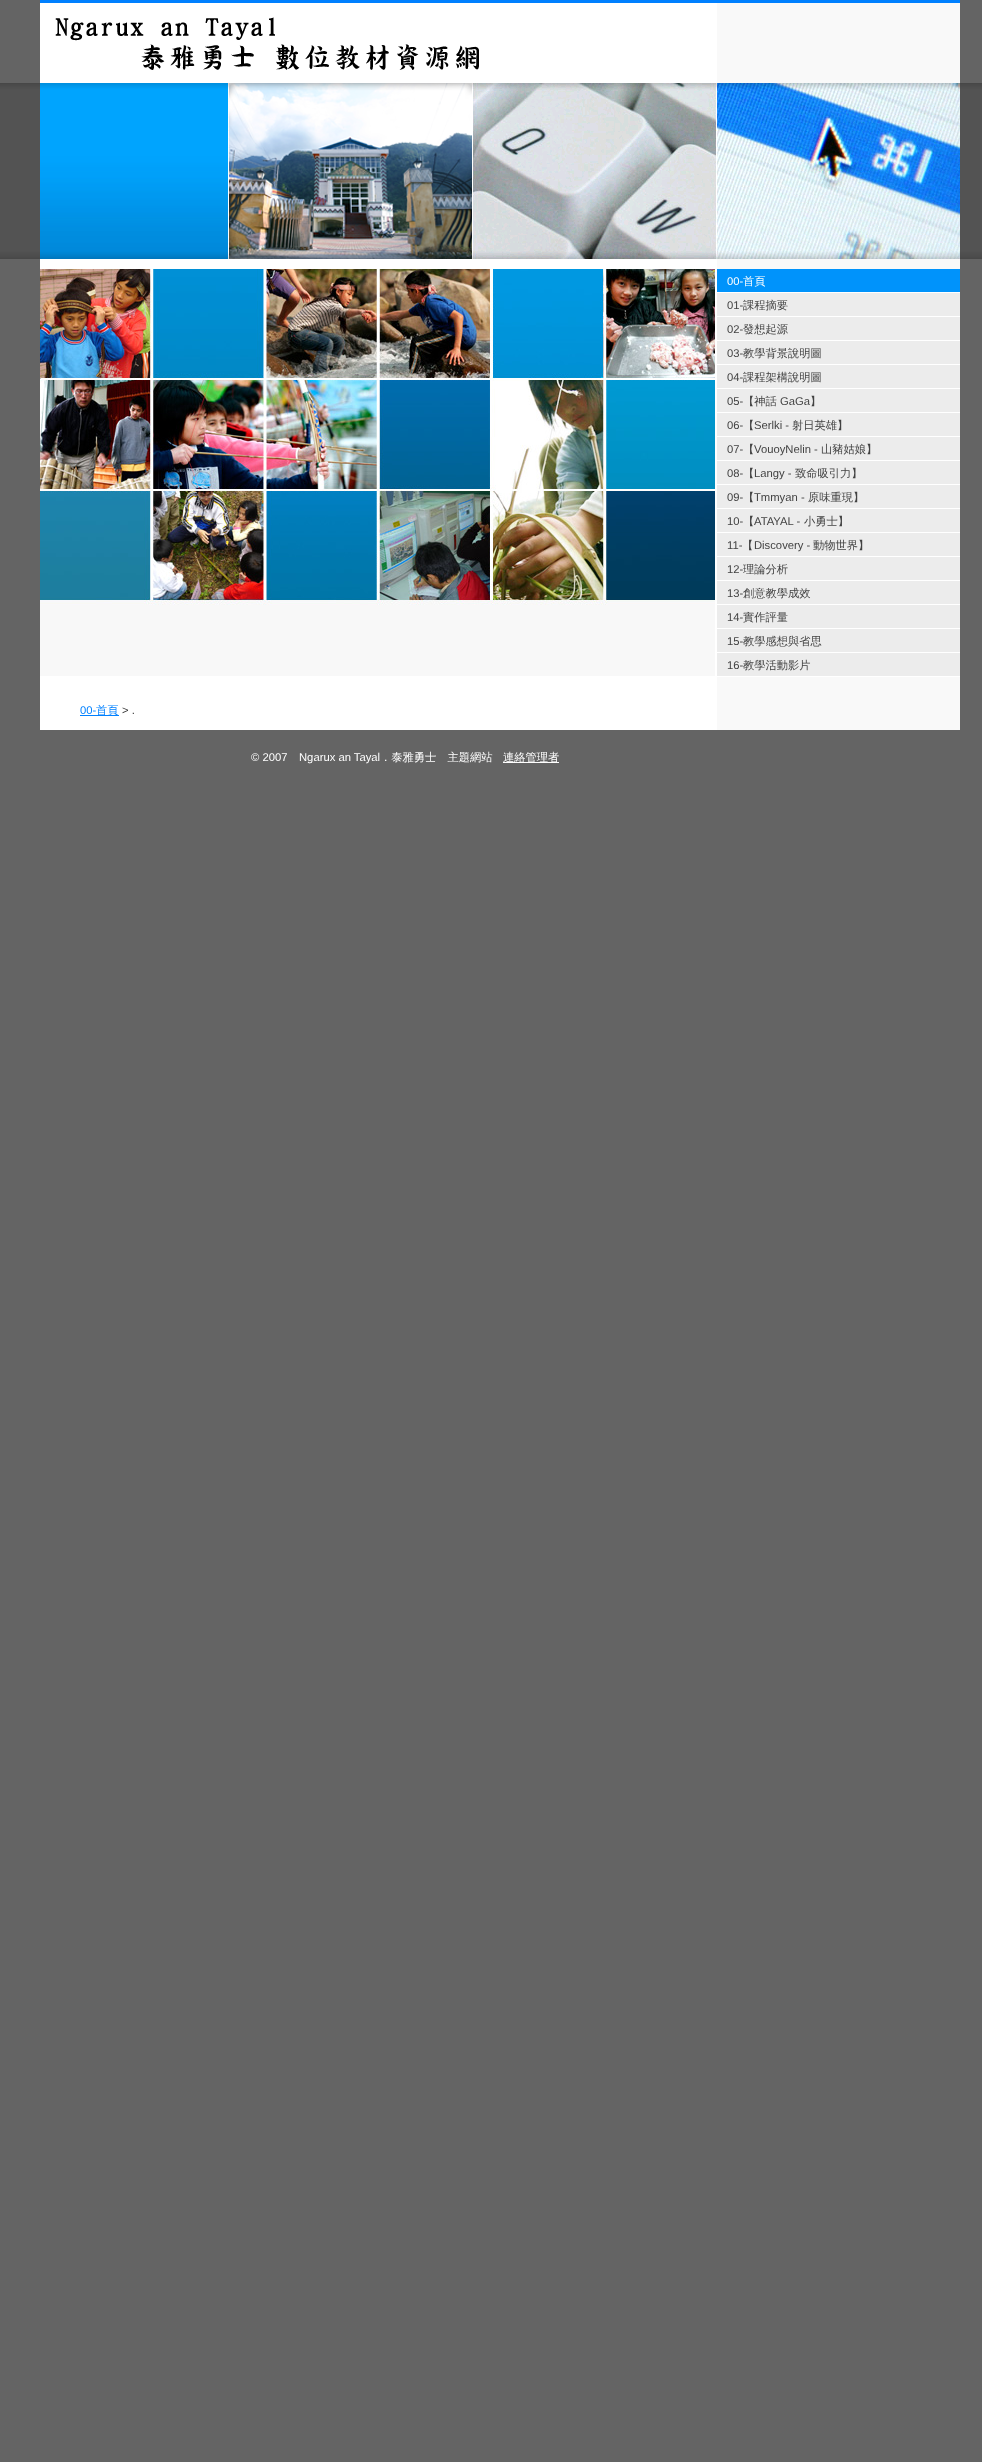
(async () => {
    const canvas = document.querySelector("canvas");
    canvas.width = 982;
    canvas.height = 2462;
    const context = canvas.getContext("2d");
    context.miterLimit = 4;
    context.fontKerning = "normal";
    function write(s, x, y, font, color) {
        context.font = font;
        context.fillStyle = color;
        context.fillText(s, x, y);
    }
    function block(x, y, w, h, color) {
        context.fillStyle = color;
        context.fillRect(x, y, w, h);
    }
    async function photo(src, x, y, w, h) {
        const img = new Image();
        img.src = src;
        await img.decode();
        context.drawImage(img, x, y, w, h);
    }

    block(0, 0, 982, 2462, "rgb(100, 100, 100)");
    await photo("media/1.png", 0, 83, 982, 176);
    block(40, 3, 677, 727, "rgb(255, 255, 255)");
    block(717, 3, 243, 727, "rgb(249, 249, 249)");
    block(40, 0, 920, 3, "rgb(0, 128, 255)");
    await photo("media/2.png", 55, 17, 424, 53);
    await photo("media/3.png", 40, 83, 188, 176);
    await photo("media/4.png", 228, 83, 732, 176);
    block(717, 269, 243, 23, "rgb(0, 147, 251)");
    block(717, 292, 243, 1, "rgb(255, 255, 255)");
    write("00-", 727, 285, "11.25px Liberation Sans", "rgb(255, 255, 255)");
    write("首頁", 743, 285, "500 11.25px WenQuanYi Zen Hei", "rgb(255, 255, 255)");
    block(717, 293, 243, 23, "rgb(236, 236, 236)");
    block(717, 316, 243, 1, "rgb(255, 255, 255)");
    write("01-", 727, 309, "11.25px Liberation Sans", "rgb(66, 66, 66)");
    write("課程摘要", 743, 309, "500 11.25px WenQuanYi Zen Hei", "rgb(66, 66, 66)");
    block(717, 317, 243, 23, "rgb(236, 236, 236)");
    block(717, 340, 243, 1, "rgb(255, 255, 255)");
    write("02-", 727, 333, "11.25px Liberation Sans", "rgb(66, 66, 66)");
    write("發想起源", 743, 333, "500 11.25px WenQuanYi Zen Hei", "rgb(66, 66, 66)");
    block(717, 341, 243, 23, "rgb(236, 236, 236)");
    block(717, 364, 243, 1, "rgb(255, 255, 255)");
    write("03-", 727, 357, "11.25px Liberation Sans", "rgb(66, 66, 66)");
    write("教學背景說明圖", 743, 357, "500 11.25px WenQuanYi Zen Hei", "rgb(66, 66, 66)");
    block(717, 365, 243, 23, "rgb(236, 236, 236)");
    block(717, 388, 243, 1, "rgb(255, 255, 255)");
    write("04-", 727, 381, "11.25px Liberation Sans", "rgb(66, 66, 66)");
    write("課程架構說明圖", 743, 381, "500 11.25px WenQuanYi Zen Hei", "rgb(66, 66, 66)");
    block(717, 389, 243, 23, "rgb(236, 236, 236)");
    block(717, 412, 243, 1, "rgb(255, 255, 255)");
    write("05-", 727, 405, "11.25px Liberation Sans", "rgb(66, 66, 66)");
    write("【神話", 743, 405, "500 11.25px WenQuanYi Zen Hei", "rgb(66, 66, 66)");
    write("GaGa", 780, 405, "11.25px Liberation Sans", "rgb(66, 66, 66)");
    write("】", 810, 405, "500 11.25px WenQuanYi Zen Hei", "rgb(66, 66, 66)");
    block(717, 413, 243, 23, "rgb(236, 236, 236)");
    block(717, 436, 243, 1, "rgb(255, 255, 255)");
    write("06-", 727, 429, "11.25px Liberation Sans", "rgb(66, 66, 66)");
    write("【", 743, 429, "500 11.25px WenQuanYi Zen Hei", "rgb(66, 66, 66)");
    write("Serlki -", 754, 429, "11.25px Liberation Sans", "rgb(66, 66, 66)");
    write("射日英雄】", 792, 429, "500 11.25px WenQuanYi Zen Hei", "rgb(66, 66, 66)");
    block(717, 437, 243, 23, "rgb(236, 236, 236)");
    block(717, 460, 243, 1, "rgb(255, 255, 255)");
    write("07-", 727, 453, "11.25px Liberation Sans", "rgb(66, 66, 66)");
    write("【", 743, 453, "500 11.25px WenQuanYi Zen Hei", "rgb(66, 66, 66)");
    write("VouoyNelin -", 754, 453, "11.25px Liberation Sans", "rgb(66, 66, 66)");
    write("山豬姑娘】", 821, 453, "500 11.25px WenQuanYi Zen Hei", "rgb(66, 66, 66)");
    block(717, 461, 243, 23, "rgb(236, 236, 236)");
    block(717, 484, 243, 1, "rgb(255, 255, 255)");
    write("08-", 727, 477, "11.25px Liberation Sans", "rgb(66, 66, 66)");
    write("【", 743, 477, "500 11.25px WenQuanYi Zen Hei", "rgb(66, 66, 66)");
    write("Langy -", 754, 477, "11.25px Liberation Sans", "rgb(66, 66, 66)");
    write("致命吸引力】", 795, 477, "500 11.25px WenQuanYi Zen Hei", "rgb(66, 66, 66)");
    block(717, 485, 243, 23, "rgb(236, 236, 236)");
    block(717, 508, 243, 1, "rgb(255, 255, 255)");
    write("09-", 727, 501, "11.25px Liberation Sans", "rgb(66, 66, 66)");
    write("【", 743, 501, "500 11.25px WenQuanYi Zen Hei", "rgb(66, 66, 66)");
    write("Tmmyan -", 754, 501, "11.25px Liberation Sans", "rgb(66, 66, 66)");
    write("原味重現】", 808, 501, "500 11.25px WenQuanYi Zen Hei", "rgb(66, 66, 66)");
    block(717, 509, 243, 23, "rgb(236, 236, 236)");
    block(717, 532, 243, 1, "rgb(255, 255, 255)");
    write("10-", 727, 525, "11.25px Liberation Sans", "rgb(66, 66, 66)");
    write("【", 743, 525, "500 11.25px WenQuanYi Zen Hei", "rgb(66, 66, 66)");
    write("ATAYAL -", 754, 525, "11.25px Liberation Sans", "rgb(66, 66, 66)");
    write("小勇士】", 804, 525, "500 11.25px WenQuanYi Zen Hei", "rgb(66, 66, 66)");
    block(717, 533, 243, 23, "rgb(236, 236, 236)");
    block(717, 556, 243, 1, "rgb(255, 255, 255)");
    write("11-", 727, 549, "11.25px Liberation Sans", "rgb(66, 66, 66)");
    write("【", 742, 549, "500 11.25px WenQuanYi Zen Hei", "rgb(66, 66, 66)");
    write("Discovery -", 754, 549, "11.25px Liberation Sans", "rgb(66, 66, 66)");
    write("動物世界】", 813, 549, "500 11.25px WenQuanYi Zen Hei", "rgb(66, 66, 66)");
    block(717, 557, 243, 23, "rgb(236, 236, 236)");
    block(717, 580, 243, 1, "rgb(255, 255, 255)");
    write("12-", 727, 573, "11.25px Liberation Sans", "rgb(66, 66, 66)");
    write("理論分析", 743, 573, "500 11.25px WenQuanYi Zen Hei", "rgb(66, 66, 66)");
    block(717, 581, 243, 23, "rgb(236, 236, 236)");
    block(717, 604, 243, 1, "rgb(255, 255, 255)");
    write("13-", 727, 597, "11.25px Liberation Sans", "rgb(66, 66, 66)");
    write("創意教學成效", 743, 597, "500 11.25px WenQuanYi Zen Hei", "rgb(66, 66, 66)");
    block(717, 605, 243, 23, "rgb(236, 236, 236)");
    block(717, 628, 243, 1, "rgb(255, 255, 255)");
    write("14-", 727, 621, "11.25px Liberation Sans", "rgb(66, 66, 66)");
    write("實作評量", 743, 621, "500 11.25px WenQuanYi Zen Hei", "rgb(66, 66, 66)");
    block(717, 629, 243, 23, "rgb(236, 236, 236)");
    block(717, 652, 243, 1, "rgb(255, 255, 255)");
    write("15-", 727, 645, "11.25px Liberation Sans", "rgb(66, 66, 66)");
    write("教學感想與省思", 743, 645, "500 11.25px WenQuanYi Zen Hei", "rgb(66, 66, 66)");
    block(717, 653, 243, 23, "rgb(236, 236, 236)");
    block(717, 676, 243, 1, "rgb(255, 255, 255)");
    write("16-", 727, 669, "11.25px Liberation Sans", "rgb(66, 66, 66)");
    write("教學活動影片", 743, 669, "500 11.25px WenQuanYi Zen Hei", "rgb(66, 66, 66)");
    await photo("media/5.png", 40, 269, 675, 407);
    write("00-", 80, 714, "11.25px Liberation Sans", "rgb(0, 128, 255)");
    block(80, 715, 39, 1, "rgb(0, 128, 255)");
    write("首頁", 96, 714, "500 11.25px WenQuanYi Zen Hei", "rgb(0, 128, 255)");
    write("> .", 122, 714, "11.25px Liberation Sans", "rgb(51, 51, 51)");
    write("© 2007", 251, 761, "11.25px Liberation Sans", "rgb(255, 255, 255)");
    write("Ngarux an Tayal", 299, 761, "11.25px Liberation Sans", "rgb(255, 255, 255)");
    write("．泰雅勇士　主題網站", 380, 761, "500 11.25px WenQuanYi Zen Hei", "rgb(255, 255, 255)");
    block(503, 762, 56, 1, "rgb(255, 255, 255)");
    write("連絡管理者", 503, 761, "500 11.25px WenQuanYi Zen Hei", "rgb(255, 255, 255)");
})();
